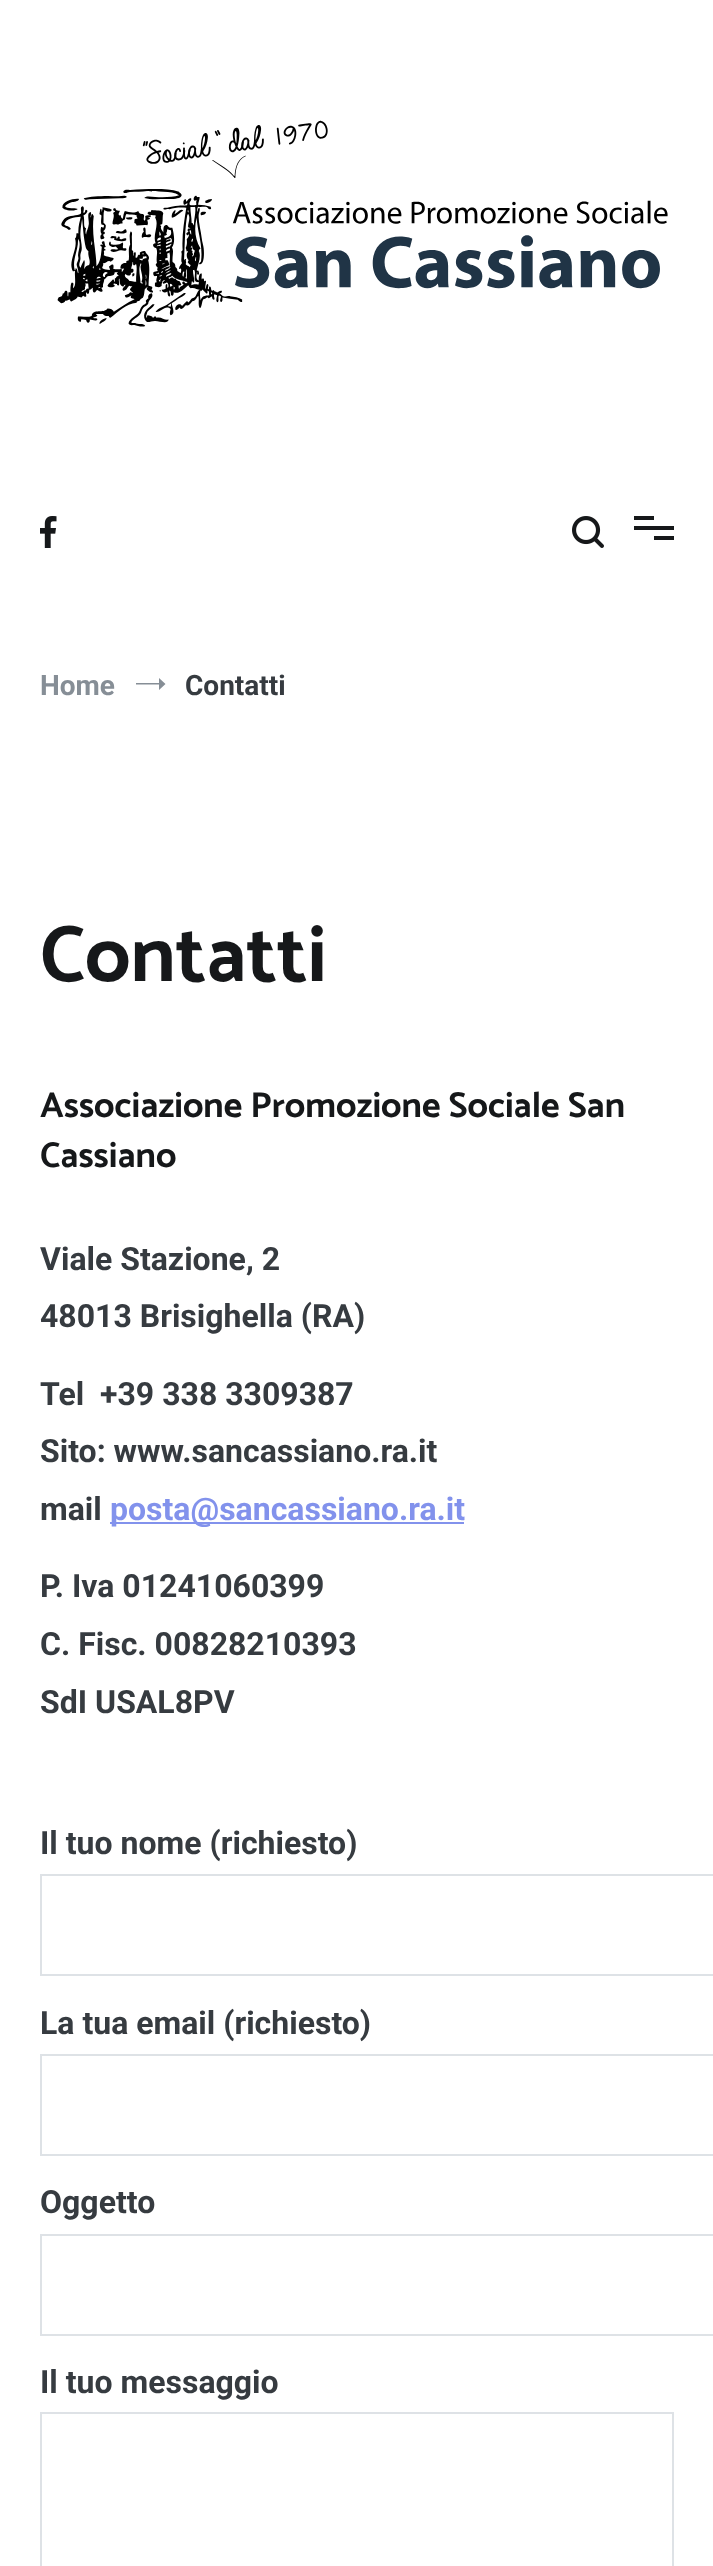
(async () => {
    const canvas = document.querySelector("canvas");
    canvas.width = 713;
    canvas.height = 2566;
    const context = canvas.getContext("2d");
    context.miterLimit = 4;
    context.fontKerning = "normal";
    function write(s, x, y, font, color) {
        context.font = font;
        context.fillStyle = color;
        context.fillText(s, x, y);
    }
    function block(x, y, w, h, color) {
        context.fillStyle = color;
        context.fillRect(x, y, w, h);
    }
    async function photo(src, x, y, w, h) {
        const img = new Image();
        img.src = src;
        await img.decode();
        context.drawImage(img, x, y, w, h);
    }

    block(0, 0, 713, 2566, "rgb(255, 255, 255)");
    await photo("media/1.png", 57, 120, 611, 207);
    await photo("media/2.png", 40, 516, 17, 32);
    await photo("media/3.png", 572, 516, 32, 32);
    block(634, 516, 20, 4, "rgb(22, 24, 26)");
    block(634, 526, 40, 4, "rgb(22, 24, 26)");
    block(654, 536, 20, 4, "rgb(22, 24, 26)");
    write("Home", 40, 695, "bold 28px Roboto", "rgb(134, 142, 150)");
    context.beginPath();
    context.moveTo(165.5, 684);
    context.lineTo(159, 690);
    context.lineTo(159, 678);
    context.closePath();
    context.moveTo(136, 683);
    context.lineTo(159.5, 683);
    context.lineTo(159.5, 684.5);
    context.lineTo(136, 684.5);
    context.closePath();
    context.fill();
    write("Contatti", 185, 695, "bold 28px Roboto", "rgb(54, 59, 64)");
    write("Contatti", 40, 981, "bold 80px Catamaran", "rgb(22, 24, 26)");
    write("Associazione Promozione Sociale San", 40, 1117, "bold 36px Catamaran", "rgb(22, 24, 26)");
    write("Cassiano", 40, 1167, "bold 36px Catamaran", "rgb(22, 24, 26)");
    write("Viale Stazione, 2", 40, 1270, "bold 32px Roboto", "rgb(54, 59, 64)");
    write("48013 Brisighella (RA)", 40, 1327, "bold 32px Roboto", "rgb(54, 59, 64)");
    write("Tel  +39 338 3309387", 40, 1405, "bold 32px Roboto", "rgb(54, 59, 64)");
    write("Sito: www.sancassiano.ra.it", 40, 1462, "bold 32px Roboto", "rgb(54, 59, 64)");
    write("mail", 40, 1520, "bold 32px Roboto", "rgb(54, 59, 64)");
    block(110, 1522, 354, 2, "rgb(130, 146, 236)");
    write("posta@sancassiano.ra.it", 110, 1520, "bold 32px Roboto", "rgb(130, 146, 236)");
    write("P. Iva 01241060399", 40, 1597, "bold 32px Roboto", "rgb(54, 59, 64)");
    write("C. Fisc. 00828210393", 40, 1655, "bold 32px Roboto", "rgb(54, 59, 64)");
    write("SdI USAL8PV", 40, 1713, "bold 32px Roboto", "rgb(54, 59, 64)");
    write("Il tuo nome (richiesto)", 40, 1854, "bold 32px Roboto", "rgb(54, 59, 64)");
    context.strokeStyle = "rgb(222, 226, 230)";
    context.lineWidth = 2;
    context.strokeRect(41, 1875, 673, 100);
    write("La tua email (richiesto)", 40, 2034, "bold 32px Roboto", "rgb(54, 59, 64)");
    context.strokeRect(41, 2055, 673, 100);
    write("Oggetto", 40, 2213, "bold 32px Roboto", "rgb(54, 59, 64)");
    context.strokeRect(41, 2235, 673, 100);
    write("Il tuo messaggio", 40, 2393, "bold 32px Roboto", "rgb(54, 59, 64)");
    context.strokeRect(41, 2413, 632, 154);
})();
